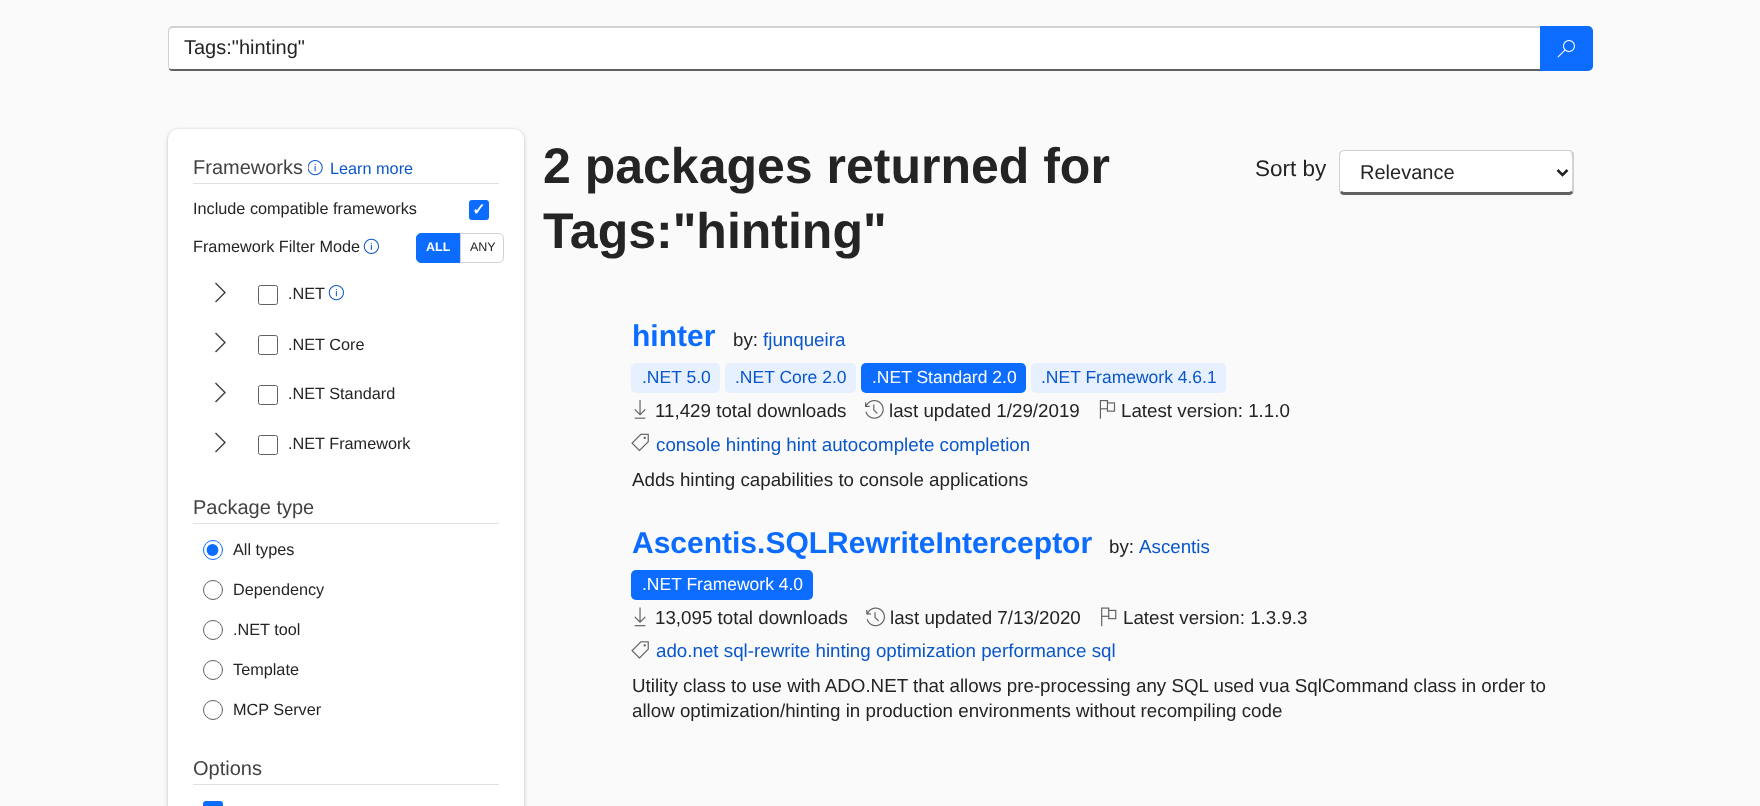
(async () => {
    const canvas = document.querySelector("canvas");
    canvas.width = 1760;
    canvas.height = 806;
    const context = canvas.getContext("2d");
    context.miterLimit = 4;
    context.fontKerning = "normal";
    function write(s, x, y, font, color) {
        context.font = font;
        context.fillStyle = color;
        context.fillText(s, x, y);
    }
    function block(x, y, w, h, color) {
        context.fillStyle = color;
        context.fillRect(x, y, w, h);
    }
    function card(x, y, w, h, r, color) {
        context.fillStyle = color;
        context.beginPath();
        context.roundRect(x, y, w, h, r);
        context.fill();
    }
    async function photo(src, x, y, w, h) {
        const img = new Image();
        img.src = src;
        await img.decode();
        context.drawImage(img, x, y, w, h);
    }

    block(0, 0, 1760, 806, "rgb(250, 250, 250)");
    context.fillStyle = "rgb(255, 255, 255)";
    context.beginPath();
    context.moveTo(172, 28);
    context.lineTo(1540, 28);
    context.lineTo(1540, 69);
    context.lineTo(172, 69);
    context.bezierCurveTo(170, 69, 169, 68, 169, 66);
    context.lineTo(169, 31);
    context.bezierCurveTo(169, 29, 170, 28, 172, 28);
    context.closePath();
    context.fill();
    context.fillStyle = "rgb(209, 209, 209)";
    context.beginPath();
    context.moveTo(172, 28);
    context.lineTo(170, 29);
    context.lineTo(169, 28);
    context.lineTo(171, 26);
    context.lineTo(1541, 26);
    context.lineTo(1540, 28);
    context.closePath();
    context.fill();
    context.fillStyle = "rgb(97, 97, 97)";
    context.beginPath();
    context.moveTo(1541, 71);
    context.lineTo(172, 71);
    context.bezierCurveTo(171, 71, 169, 70, 169, 69);
    context.lineTo(169, 68);
    context.bezierCurveTo(170, 69, 171, 69, 172, 69);
    context.lineTo(1540, 69);
    context.closePath();
    context.fill();
    context.fillStyle = "rgb(209, 209, 209)";
    context.beginPath();
    context.moveTo(169, 69);
    context.lineTo(168, 66);
    context.lineTo(168, 31);
    context.bezierCurveTo(168, 30, 168, 29, 169, 28);
    context.lineTo(170, 29);
    context.lineTo(169, 30);
    context.lineTo(169, 68);
    context.closePath();
    context.fill();
    write("Tags:\"hinting\"", 184, 54, "20px Liberation Sans", "rgb(36, 36, 36)");
    context.fillStyle = "rgb(11, 108, 255)";
    context.beginPath();
    context.roundRect(1540, 26, 53, 45, [0, 5, 5, 0]);
    context.fill();
    await photo("media/1.png", 1557, 40, 18, 18);
    context.fillStyle = "rgba(0, 0, 0, 0.14)";
    context.filter = "blur(2.5px)";
    context.beginPath();
    context.roundRect(168, 131, 356, 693, 10);
    context.fill();
    context.filter = "none";
    context.fillStyle = "rgba(0, 0, 0, 0.12)";
    context.filter = "blur(1px)";
    context.beginPath();
    context.roundRect(168, 129, 356, 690, 10);
    context.fill();
    context.filter = "none";
    card(168, 129, 356, 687, 10, "rgb(255, 255, 255)");
    block(193, 183, 306, 1, "rgb(224, 224, 224)");
    write("Frameworks", 193, 174, "20px Liberation Sans", "rgb(66, 66, 66)");
    await photo("media/2.png", 308, 160, 15, 16);
    write("Learn more", 330, 174, "16.25px Liberation Sans", "rgb(9, 86, 204)");
    write("Include compatible frameworks", 193, 214, "16.25px Liberation Sans", "rgb(36, 36, 36)");
    context.fillStyle = "rgb(11, 108, 255)";
    context.beginPath();
    context.roundRect(469.5, 200.5, 19, 19, 2);
    context.fill();
    context.strokeStyle = "rgb(11, 108, 255)";
    context.stroke();
    write("✓", 472, 215, "bold 16.25px DejaVu Sans", "rgb(255, 255, 255)");
    write("Framework Filter Mode", 193, 252, "16.25px Liberation Sans", "rgb(36, 36, 36)");
    await photo("media/3.png", 363, 238, 16, 16);
    context.fillStyle = "rgb(11, 108, 255)";
    context.beginPath();
    context.roundRect(416.5, 233.5, 43, 29, [4.5, 0, 0, 4.5]);
    context.fill();
    context.stroke();
    write("ALL", 426, 251, "bold 12.5px Liberation Sans", "rgb(255, 255, 255)");
    context.beginPath();
    context.roundRect(460.5, 233.5, 43, 29, [0, 4.5, 4.5, 0]);
    context.strokeStyle = "rgb(209, 209, 209)";
    context.stroke();
    write("ANY", 470, 251, "12.5px Liberation Sans", "rgb(36, 36, 36)");
    context.fillStyle = "rgb(66, 66, 66)";
    context.beginPath();
    context.moveTo(215, 301.5);
    context.lineTo(224, 292.5);
    context.lineTo(215, 283.5);
    context.lineTo(216, 282.5);
    context.lineTo(226, 292.5);
    context.lineTo(216, 302.5);
    context.closePath();
    context.fill();
    context.beginPath();
    context.roundRect(258.5, 285.5, 19, 19, 2);
    context.strokeStyle = "rgb(97, 97, 97)";
    context.stroke();
    write(".NET", 288, 299, "16.25px Liberation Sans", "rgb(36, 36, 36)");
    await photo("media/4.png", 328, 285, 16, 16);
    context.fillStyle = "rgb(66, 66, 66)";
    context.beginPath();
    context.moveTo(215, 351.5);
    context.lineTo(224, 342.5);
    context.lineTo(215, 333.5);
    context.lineTo(216, 332.5);
    context.lineTo(226, 342.5);
    context.lineTo(216, 352.5);
    context.closePath();
    context.fill();
    context.beginPath();
    context.roundRect(258.5, 335.5, 19, 19, 2);
    context.stroke();
    write(".NET Core", 288, 350, "16.25px Liberation Sans", "rgb(36, 36, 36)");
    context.fillStyle = "rgb(66, 66, 66)";
    context.beginPath();
    context.moveTo(215, 401.5);
    context.lineTo(224, 392.5);
    context.lineTo(215, 383.5);
    context.lineTo(216, 382.5);
    context.lineTo(226, 392.5);
    context.lineTo(216, 402.5);
    context.closePath();
    context.fill();
    context.beginPath();
    context.roundRect(258.5, 385.5, 19, 19, 2);
    context.stroke();
    write(".NET Standard", 288, 399, "16.25px Liberation Sans", "rgb(36, 36, 36)");
    context.fillStyle = "rgb(66, 66, 66)";
    context.beginPath();
    context.moveTo(215, 451.5);
    context.lineTo(224, 442.5);
    context.lineTo(215, 433.5);
    context.lineTo(216, 432.5);
    context.lineTo(226, 442.5);
    context.lineTo(216, 452.5);
    context.closePath();
    context.fill();
    context.beginPath();
    context.roundRect(258.5, 435.5, 19, 19, 2);
    context.stroke();
    write(".NET Framework", 288, 449, "16.25px Liberation Sans", "rgb(36, 36, 36)");
    block(193, 523, 306, 1, "rgb(224, 224, 224)");
    write("Package type", 193, 514, "20px Liberation Sans", "rgb(66, 66, 66)");
    context.beginPath();
    context.moveTo(212.5, 550);
    context.lineTo(212.8, 550);
    context.strokeStyle = "rgb(11, 108, 255)";
    context.lineWidth = 11.8;
    context.lineCap = "round";
    context.setLineDash([0, 17.5]);
    context.stroke();
    context.beginPath();
    context.arc(213, 550, 9.5, 0, Math.PI * 2);
    context.lineWidth = 1;
    context.setLineDash([]);
    context.stroke();
    write("All types", 233, 555, "16.25px Liberation Sans", "rgb(36, 36, 36)");
    context.beginPath();
    context.arc(213, 590, 9.5, 0, Math.PI * 2);
    context.strokeStyle = "rgb(97, 97, 97)";
    context.stroke();
    write("Dependency", 233, 595, "16.25px Liberation Sans", "rgb(36, 36, 36)");
    context.beginPath();
    context.arc(213, 630, 9.5, 0, Math.PI * 2);
    context.stroke();
    write(".NET tool", 233, 635, "16.25px Liberation Sans", "rgb(36, 36, 36)");
    context.beginPath();
    context.arc(213, 670, 9.5, 0, Math.PI * 2);
    context.stroke();
    write("Template", 233, 675, "16.25px Liberation Sans", "rgb(36, 36, 36)");
    context.beginPath();
    context.arc(213, 710, 9.5, 0, Math.PI * 2);
    context.stroke();
    write("MCP Server", 233, 715, "16.25px Liberation Sans", "rgb(36, 36, 36)");
    block(193, 784, 306, 1, "rgb(224, 224, 224)");
    write("Options", 193, 775, "20px Liberation Sans", "rgb(66, 66, 66)");
    context.fillStyle = "rgb(11, 108, 255)";
    context.beginPath();
    context.roundRect(203.5, 801.5, 19, 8, 2);
    context.fill();
    context.strokeStyle = "rgb(11, 108, 255)";
    context.stroke();
    write("2 packages returned for", 543, 183, "bold 50px Liberation Sans", "rgb(36, 36, 36)");
    write("Tags:\"hinting\"", 543, 248, "bold 50px Liberation Sans", "rgb(36, 36, 36)");
    write("Sort by", 1255, 176, "22.5px Liberation Sans", "rgb(36, 36, 36)");
    context.fillStyle = "rgb(255, 255, 255)";
    context.beginPath();
    context.moveTo(1344, 151);
    context.lineTo(1569, 151);
    context.bezierCurveTo(1571, 151, 1572, 153, 1572, 155);
    context.lineTo(1572, 190);
    context.bezierCurveTo(1572, 191, 1571, 192, 1569, 192);
    context.lineTo(1344, 192);
    context.bezierCurveTo(1342, 192, 1340, 191, 1340, 190);
    context.lineTo(1340, 155);
    context.bezierCurveTo(1340, 153, 1342, 151, 1344, 151);
    context.closePath();
    context.fill();
    context.fillStyle = "rgb(209, 209, 209)";
    context.beginPath();
    context.moveTo(1344, 150);
    context.bezierCurveTo(1342, 150, 1341, 151, 1340, 152);
    context.lineTo(1341, 152);
    context.bezierCurveTo(1342, 152, 1343, 151, 1344, 151);
    context.lineTo(1569, 151);
    context.bezierCurveTo(1570, 151, 1571, 152, 1571, 152);
    context.lineTo(1572, 151);
    context.bezierCurveTo(1572, 150, 1570, 150, 1569, 150);
    context.closePath();
    context.fill();
    context.beginPath();
    context.moveTo(1574, 192);
    context.lineTo(1573, 193);
    context.lineTo(1572, 191);
    context.bezierCurveTo(1572, 190, 1573, 155, 1571, 152);
    context.lineTo(1572, 151);
    context.lineTo(1574, 153);
    context.closePath();
    context.fill();
    context.fillStyle = "rgb(97, 97, 97)";
    context.beginPath();
    context.moveTo(1344, 195);
    context.lineTo(1569, 195);
    context.bezierCurveTo(1571, 195, 1572, 194, 1573, 193);
    context.lineTo(1572, 191);
    context.lineTo(1569, 192);
    context.lineTo(1344, 192);
    context.lineTo(1341, 191);
    context.lineTo(1340, 193);
    context.bezierCurveTo(1341, 194, 1342, 195, 1344, 195);
    context.closePath();
    context.fill();
    context.fillStyle = "rgb(209, 209, 209)";
    context.beginPath();
    context.moveTo(1340, 152);
    context.bezierCurveTo(1339, 152, 1339, 154, 1339, 155);
    context.lineTo(1339, 190);
    context.lineTo(1340, 193);
    context.lineTo(1341, 191);
    context.lineTo(1340, 190);
    context.lineTo(1340, 155);
    context.lineTo(1341, 152);
    context.closePath();
    context.fill();
    context.beginPath();
    context.moveTo(1557.5, 170);
    context.lineTo(1562.5, 175);
    context.lineTo(1567.5, 170);
    context.strokeStyle = "rgb(36, 36, 36)";
    context.lineWidth = 2.5;
    context.lineCap = "butt";
    context.stroke();
    write("Relevance", 1360, 179, "20px Liberation Sans", "rgb(36, 36, 36)");
    write("hinter", 632, 346, "bold 30px Liberation Sans", "rgb(11, 108, 255)");
    write("by:", 733, 346, "18.75px Liberation Sans", "rgb(36, 36, 36)");
    write("fjunqueira", 763, 346, "18.75px Liberation Sans", "rgb(9, 86, 204)");
    card(631, 363, 89, 30, 5, "rgb(231, 240, 255)");
    write(".NET 5.0", 642, 383, "17.5px Liberation Sans", "rgb(9, 86, 204)");
    card(725, 363, 131, 30, 5, "rgb(231, 240, 255)");
    write(".NET Core 2.0", 735, 383, "17.5px Liberation Sans", "rgb(9, 86, 204)");
    card(861, 363, 165, 30, 5, "rgb(11, 108, 255)");
    write(".NET Standard 2.0", 872, 383, "17.5px Liberation Sans", "rgb(255, 255, 255)");
    card(1031, 363, 195, 30, 5, "rgb(231, 240, 255)");
    write(".NET Framework 4.6.1", 1041, 383, "17.5px Liberation Sans", "rgb(9, 86, 204)");
    await photo("media/5.png", 634, 400, 12, 19);
    write("11,429 total downloads", 655, 417, "18.75px Liberation Sans", "rgb(36, 36, 36)");
    await photo("media/6.png", 865, 400, 19, 19);
    write("last updated 1/29/2019", 889, 417, "18.75px Liberation Sans", "rgb(36, 36, 36)");
    await photo("media/7.png", 1099, 400, 17, 19);
    write("Latest version: 1.1.0", 1121, 417, "18.75px Liberation Sans", "rgb(36, 36, 36)");
    await photo("media/8.png", 631, 433, 18, 19);
    write("console hinting hint autocomplete completion", 656, 451, "18.75px Liberation Sans", "rgb(9, 86, 204)");
    write("Adds hinting capabilities to console applications", 632, 486, "18.75px Liberation Sans", "rgb(36, 36, 36)");
    write("Ascentis.SQLRewriteInterceptor", 632, 553, "bold 30px Liberation Sans", "rgb(11, 108, 255)");
    write("by:", 1109, 553, "18.75px Liberation Sans", "rgb(36, 36, 36)");
    write("Ascentis", 1139, 553, "18.75px Liberation Sans", "rgb(9, 86, 204)");
    card(631, 570, 182, 30, 5, "rgb(11, 108, 255)");
    write(".NET Framework 4.0", 642, 590, "17.5px Liberation Sans", "rgb(255, 255, 255)");
    await photo("media/9.png", 634, 607, 12, 20);
    write("13,095 total downloads", 655, 624, "18.75px Liberation Sans", "rgb(36, 36, 36)");
    await photo("media/10.png", 866, 607, 19, 20);
    write("last updated 7/13/2020", 890, 624, "18.75px Liberation Sans", "rgb(36, 36, 36)");
    await photo("media/11.png", 1101, 607, 16, 20);
    write("Latest version: 1.3.9.3", 1123, 624, "18.75px Liberation Sans", "rgb(36, 36, 36)");
    await photo("media/12.png", 631, 641, 18, 18);
    write("ado.net sql-rewrite hinting optimization performance sql", 656, 657, "18.75px Liberation Sans", "rgb(9, 86, 204)");
    write("Utility class to use with ADO.NET that allows pre-processing any SQL used vua SqlCommand class in order to", 632, 692, "18.75px Liberation Sans", "rgb(36, 36, 36)");
    write("allow optimization/hinting in production environments without recompiling code", 632, 717, "18.75px Liberation Sans", "rgb(36, 36, 36)");
})();
